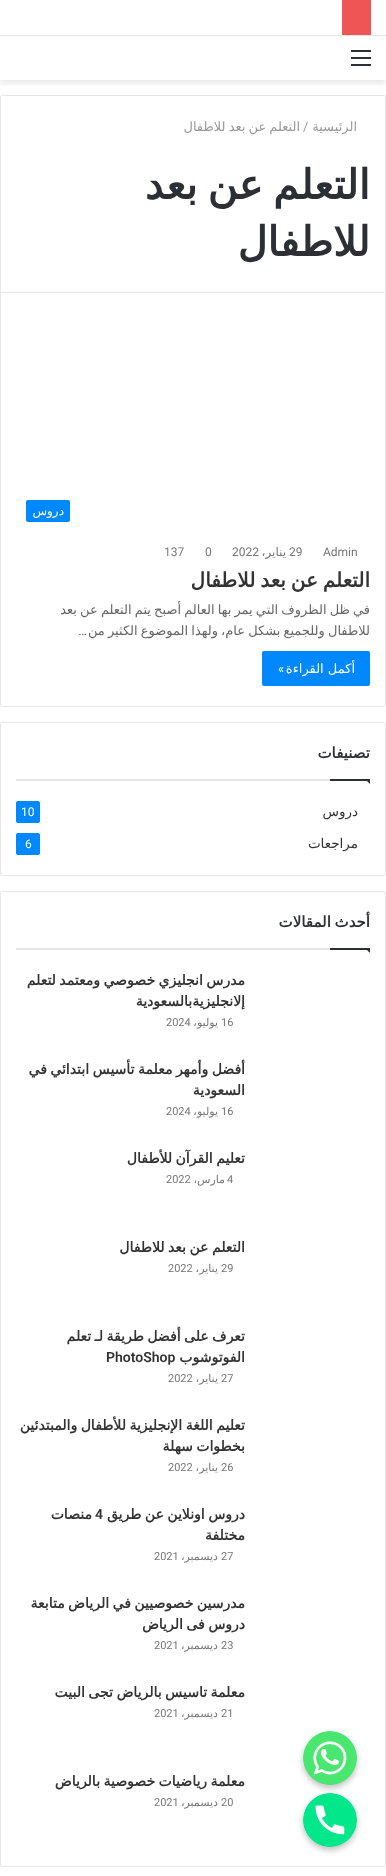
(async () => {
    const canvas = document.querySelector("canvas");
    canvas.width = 386;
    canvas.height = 1876;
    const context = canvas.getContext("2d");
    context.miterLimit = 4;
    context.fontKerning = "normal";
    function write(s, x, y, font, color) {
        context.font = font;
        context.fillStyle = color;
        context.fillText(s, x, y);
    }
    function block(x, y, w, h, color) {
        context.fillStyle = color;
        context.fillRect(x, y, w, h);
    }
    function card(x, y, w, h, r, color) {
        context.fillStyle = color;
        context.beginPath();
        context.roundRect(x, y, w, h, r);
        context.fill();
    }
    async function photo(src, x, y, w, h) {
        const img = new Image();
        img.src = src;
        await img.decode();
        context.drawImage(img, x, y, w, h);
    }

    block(0, 0, 386, 1876, "rgb(255, 255, 255)");
    context.save();
    context.beginPath();
    context.rect(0, 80, 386, 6);
    context.clip();
    context.fillStyle = "rgba(0, 0, 0, 0.1)";
    context.filter = "blur(3.5px)";
    context.beginPath();
    context.rect(0, 39, 386, 44);
    context.fill();
    context.filter = "none";
    context.restore();
    block(0, 35, 386, 1, "rgb(230, 230, 230)");
    block(342, 0, 29, 35, "rgb(240, 85, 85)");
    block(351, 57, 20, 2, "rgb(44, 47, 52)");
    block(351, 50, 20, 2, "rgb(44, 47, 52)");
    block(351, 64, 20, 2, "rgb(44, 47, 52)");
    context.beginPath();
    context.roundRect(0.5, 95.5, 385, 197, [1.5, 1.5, 0, 0]);
    context.strokeStyle = "rgb(230, 230, 230)";
    context.stroke();
    context.direction = "rtl";
    write("الرئيسية", 357, 131, "13px DejaVu Sans", "rgb(153, 153, 153)");
    context.direction = "ltr";
    write("/", 303, 131, "13px Roboto", "rgb(153, 153, 153)");
    context.wordSpacing = "-1px";
    context.direction = "rtl";
    write("التعلم عن بعد للاطفال", 300, 131, "13px DejaVu Sans", "rgb(153, 153, 153)");
    context.wordSpacing = "-3px";
    write("التعلم عن بعد", 370, 199, "bold 41px DejaVu Sans", "rgb(44, 47, 52)");
    context.wordSpacing = "0px";
    write("للاطفال", 370, 256, "bold 41px DejaVu Sans", "rgb(44, 47, 52)");
    block(385, 293, 1, 413, "rgb(230, 230, 230)");
    block(1, 706, 384, 1, "rgb(230, 230, 230)");
    block(0, 293, 1, 413, "rgb(230, 230, 230)");
    card(26, 500, 44, 22, 2, "rgb(0, 136, 255)");
    write("دروس", 64, 515, "12px DejaVu Sans", "rgb(255, 255, 255)");
    context.direction = "ltr";
    write("Admin", 323, 556, "12px Roboto", "rgb(118, 118, 118)");
    write("29", 289, 556, "12px Roboto", "rgb(118, 118, 118)");
    context.direction = "rtl";
    write("يناير،", 286, 556, "12px DejaVu Sans", "rgb(118, 118, 118)");
    context.direction = "ltr";
    write("2022", 232, 556, "12px Roboto", "rgb(118, 118, 118)");
    write("0", 205, 556, "12px Roboto", "rgb(118, 118, 118)");
    write("137", 164, 556, "12px Roboto", "rgb(118, 118, 118)");
    context.wordSpacing = "-1.5px";
    context.direction = "rtl";
    write("التعلم عن بعد للاطفال", 370, 587, "bold 20px DejaVu Sans", "rgb(51, 51, 51)");
    context.wordSpacing = "-1px";
    write("في ظل الظروف التي يمر بها العالم أصبح يتم التعلم عن بعد", 370, 614, "13px DejaVu Sans", "rgb(102, 102, 102)");
    write("للاطفال وللجميع بشكل عام، ولهذا الموضوع الكثير من", 370, 635, "13px DejaVu Sans", "rgb(102, 102, 102)");
    context.wordSpacing = "0px";
    write("…", 87, 635, "13px Roboto", "rgb(102, 102, 102)");
    card(262, 651, 108, 35, 2, "rgb(0, 136, 255)");
    write("أكمل القراءة", 355, 673, "13px DejaVu Sans", "rgb(255, 255, 255)");
    write("»", 284, 673, "13px Roboto", "rgb(255, 255, 255)");
    context.beginPath();
    context.roundRect(0.5, 722.5, 385, 153, 1.5);
    context.stroke();
    block(16, 779, 314, 2, "rgb(230, 230, 230)");
    write("تصنيفات", 370, 758, "bold 15px DejaVu Sans", "rgb(44, 47, 52)");
    context.beginPath();
    context.moveTo(365, 779);
    context.lineTo(370, 779);
    context.lineTo(370, 784);
    context.closePath();
    context.fill();
    block(330, 779, 40, 2, "rgb(44, 47, 52)");
    write("دروس", 358, 816, "13.5px DejaVu Sans", "rgb(51, 51, 51)");
    card(16, 801, 24, 22, 2, "rgb(0, 136, 255)");
    context.direction = "ltr";
    write("10", 21, 816, "12px Roboto", "rgb(255, 255, 255)");
    context.direction = "rtl";
    write("مراجعات", 358, 848, "13.5px DejaVu Sans", "rgb(51, 51, 51)");
    card(16, 833, 24, 22, 2, "rgb(0, 136, 255)");
    context.direction = "ltr";
    write("6", 25, 848, "12px Roboto", "rgb(255, 255, 255)");
    context.beginPath();
    context.roundRect(0.5, 891.5, 385, 975, 1.5);
    context.stroke();
    block(16, 948, 314, 2, "rgb(230, 230, 230)");
    context.wordSpacing = "-1px";
    context.direction = "rtl";
    write("أحدث المقالات", 370, 927, "bold 15px DejaVu Sans", "rgb(44, 47, 52)");
    context.beginPath();
    context.moveTo(365, 948);
    context.lineTo(370, 948);
    context.lineTo(370, 953);
    context.closePath();
    context.fill();
    block(330, 948, 40, 2, "rgb(44, 47, 52)");
    write("مدرس انجليزي خصوصي ومعتمد لتعلم", 245, 985, "bold 14px DejaVu Sans", "rgb(51, 51, 51)");
    context.wordSpacing = "0px";
    write("إلانجليزيةبالسعودية", 245, 1006, "bold 14px DejaVu Sans", "rgb(51, 51, 51)");
    context.direction = "ltr";
    write("16", 221, 1026, "11px Roboto", "rgb(118, 118, 118)");
    context.direction = "rtl";
    write("يوليو،", 218, 1026, "11px DejaVu Sans", "rgb(118, 118, 118)");
    context.direction = "ltr";
    write("2024", 166, 1026, "11px Roboto", "rgb(118, 118, 118)");
    context.wordSpacing = "-1px";
    context.direction = "rtl";
    write("أفضل وأمهر معلمة تأسيس ابتدائي في", 245, 1074, "bold 14px DejaVu Sans", "rgb(51, 51, 51)");
    context.wordSpacing = "0px";
    write("السعودية", 245, 1095, "bold 14px DejaVu Sans", "rgb(51, 51, 51)");
    context.direction = "ltr";
    write("16", 221, 1115, "11px Roboto", "rgb(118, 118, 118)");
    context.direction = "rtl";
    write("يوليو،", 218, 1115, "11px DejaVu Sans", "rgb(118, 118, 118)");
    context.direction = "ltr";
    write("2024", 166, 1115, "11px Roboto", "rgb(118, 118, 118)");
    context.wordSpacing = "-1px";
    context.direction = "rtl";
    write("تعليم القرآن للأطفال", 245, 1163, "bold 14px DejaVu Sans", "rgb(51, 51, 51)");
    context.wordSpacing = "0px";
    context.direction = "ltr";
    write("4", 227, 1183, "11px Roboto", "rgb(118, 118, 118)");
    context.direction = "rtl";
    write("مارس،", 225, 1183, "11px DejaVu Sans", "rgb(118, 118, 118)");
    context.direction = "ltr";
    write("2022", 166, 1183, "11px Roboto", "rgb(118, 118, 118)");
    context.wordSpacing = "-1px";
    context.direction = "rtl";
    write("التعلم عن بعد للاطفال", 245, 1252, "bold 14px DejaVu Sans", "rgb(51, 51, 51)");
    context.wordSpacing = "0px";
    context.direction = "ltr";
    write("29", 221, 1272, "11px Roboto", "rgb(118, 118, 118)");
    context.direction = "rtl";
    write("يناير،", 218, 1272, "11px DejaVu Sans", "rgb(118, 118, 118)");
    context.direction = "ltr";
    write("2022", 168, 1272, "11px Roboto", "rgb(118, 118, 118)");
    context.wordSpacing = "-1px";
    context.direction = "rtl";
    write("تعرف على أفضل طريقة لـ تعلم", 245, 1341, "bold 14px DejaVu Sans", "rgb(51, 51, 51)");
    context.wordSpacing = "0px";
    write("الفوتوشوب", 245, 1362, "bold 14px DejaVu Sans", "rgb(51, 51, 51)");
    context.direction = "ltr";
    write("PhotoShop", 106, 1362, "600 14px Roboto", "rgb(51, 51, 51)");
    write("27", 221, 1382, "11px Roboto", "rgb(118, 118, 118)");
    context.direction = "rtl";
    write("يناير،", 218, 1382, "11px DejaVu Sans", "rgb(118, 118, 118)");
    context.direction = "ltr";
    write("2022", 168, 1382, "11px Roboto", "rgb(118, 118, 118)");
    context.wordSpacing = "-1px";
    context.direction = "rtl";
    write("تعليم اللغة الإنجليزية للأطفال والمبتدئين", 245, 1430, "bold 14px DejaVu Sans", "rgb(51, 51, 51)");
    write("بخطوات سهلة", 245, 1451, "bold 14px DejaVu Sans", "rgb(51, 51, 51)");
    context.wordSpacing = "0px";
    context.direction = "ltr";
    write("26", 221, 1471, "11px Roboto", "rgb(118, 118, 118)");
    context.direction = "rtl";
    write("يناير،", 218, 1471, "11px DejaVu Sans", "rgb(118, 118, 118)");
    context.direction = "ltr";
    write("2022", 168, 1471, "11px Roboto", "rgb(118, 118, 118)");
    context.wordSpacing = "-1px";
    context.direction = "rtl";
    write("دروس اونلاين عن طريق", 245, 1519, "bold 14px DejaVu Sans", "rgb(51, 51, 51)");
    context.wordSpacing = "0px";
    context.direction = "ltr";
    write("4", 95, 1519, "600 14px Roboto", "rgb(51, 51, 51)");
    context.direction = "rtl";
    write("منصات", 92, 1519, "bold 14px DejaVu Sans", "rgb(51, 51, 51)");
    write("مختلفة", 245, 1540, "bold 14px DejaVu Sans", "rgb(51, 51, 51)");
    context.direction = "ltr";
    write("27", 221, 1560, "11px Roboto", "rgb(118, 118, 118)");
    context.direction = "rtl";
    write("ديسمبر،", 218, 1560, "11px DejaVu Sans", "rgb(118, 118, 118)");
    context.direction = "ltr";
    write("2021", 154, 1560, "11px Roboto", "rgb(118, 118, 118)");
    context.wordSpacing = "-1px";
    context.direction = "rtl";
    write("مدرسين خصوصيين في الرياض متابعة", 245, 1608, "bold 14px DejaVu Sans", "rgb(51, 51, 51)");
    write("دروس فى الرياض", 245, 1629, "bold 14px DejaVu Sans", "rgb(51, 51, 51)");
    context.wordSpacing = "0px";
    context.direction = "ltr";
    write("23", 221, 1649, "11px Roboto", "rgb(118, 118, 118)");
    context.direction = "rtl";
    write("ديسمبر،", 218, 1649, "11px DejaVu Sans", "rgb(118, 118, 118)");
    context.direction = "ltr";
    write("2021", 154, 1649, "11px Roboto", "rgb(118, 118, 118)");
    context.wordSpacing = "-1px";
    context.direction = "rtl";
    write("معلمة تاسيس بالرياض تجى البيت", 245, 1697, "bold 14px DejaVu Sans", "rgb(51, 51, 51)");
    context.wordSpacing = "0px";
    context.direction = "ltr";
    write("21", 221, 1717, "11px Roboto", "rgb(118, 118, 118)");
    context.direction = "rtl";
    write("ديسمبر،", 218, 1717, "11px DejaVu Sans", "rgb(118, 118, 118)");
    context.direction = "ltr";
    write("2021", 154, 1717, "11px Roboto", "rgb(118, 118, 118)");
    context.wordSpacing = "-1px";
    context.direction = "rtl";
    write("معلمة رياضيات خصوصية بالرياض", 245, 1786, "bold 14px DejaVu Sans", "rgb(51, 51, 51)");
    context.wordSpacing = "0px";
    context.direction = "ltr";
    write("20", 221, 1806, "11px Roboto", "rgb(118, 118, 118)");
    context.direction = "rtl";
    write("ديسمبر،", 218, 1806, "11px DejaVu Sans", "rgb(118, 118, 118)");
    context.direction = "ltr";
    write("2021", 154, 1806, "11px Roboto", "rgb(118, 118, 118)");
    context.fillStyle = "rgba(0, 0, 0, 0.25)";
    context.filter = "blur(3px)";
    context.beginPath();
    context.roundRect(303, 1734, 54, 54, 27);
    context.fill();
    context.filter = "none";
    await photo("media/1.png", 303, 1731, 54, 54);
    context.filter = "blur(3px)";
    context.beginPath();
    context.roundRect(303, 1796, 54, 54, 27);
    context.fill();
    context.filter = "none";
    await photo("media/2.png", 303, 1793, 54, 54);
})();
